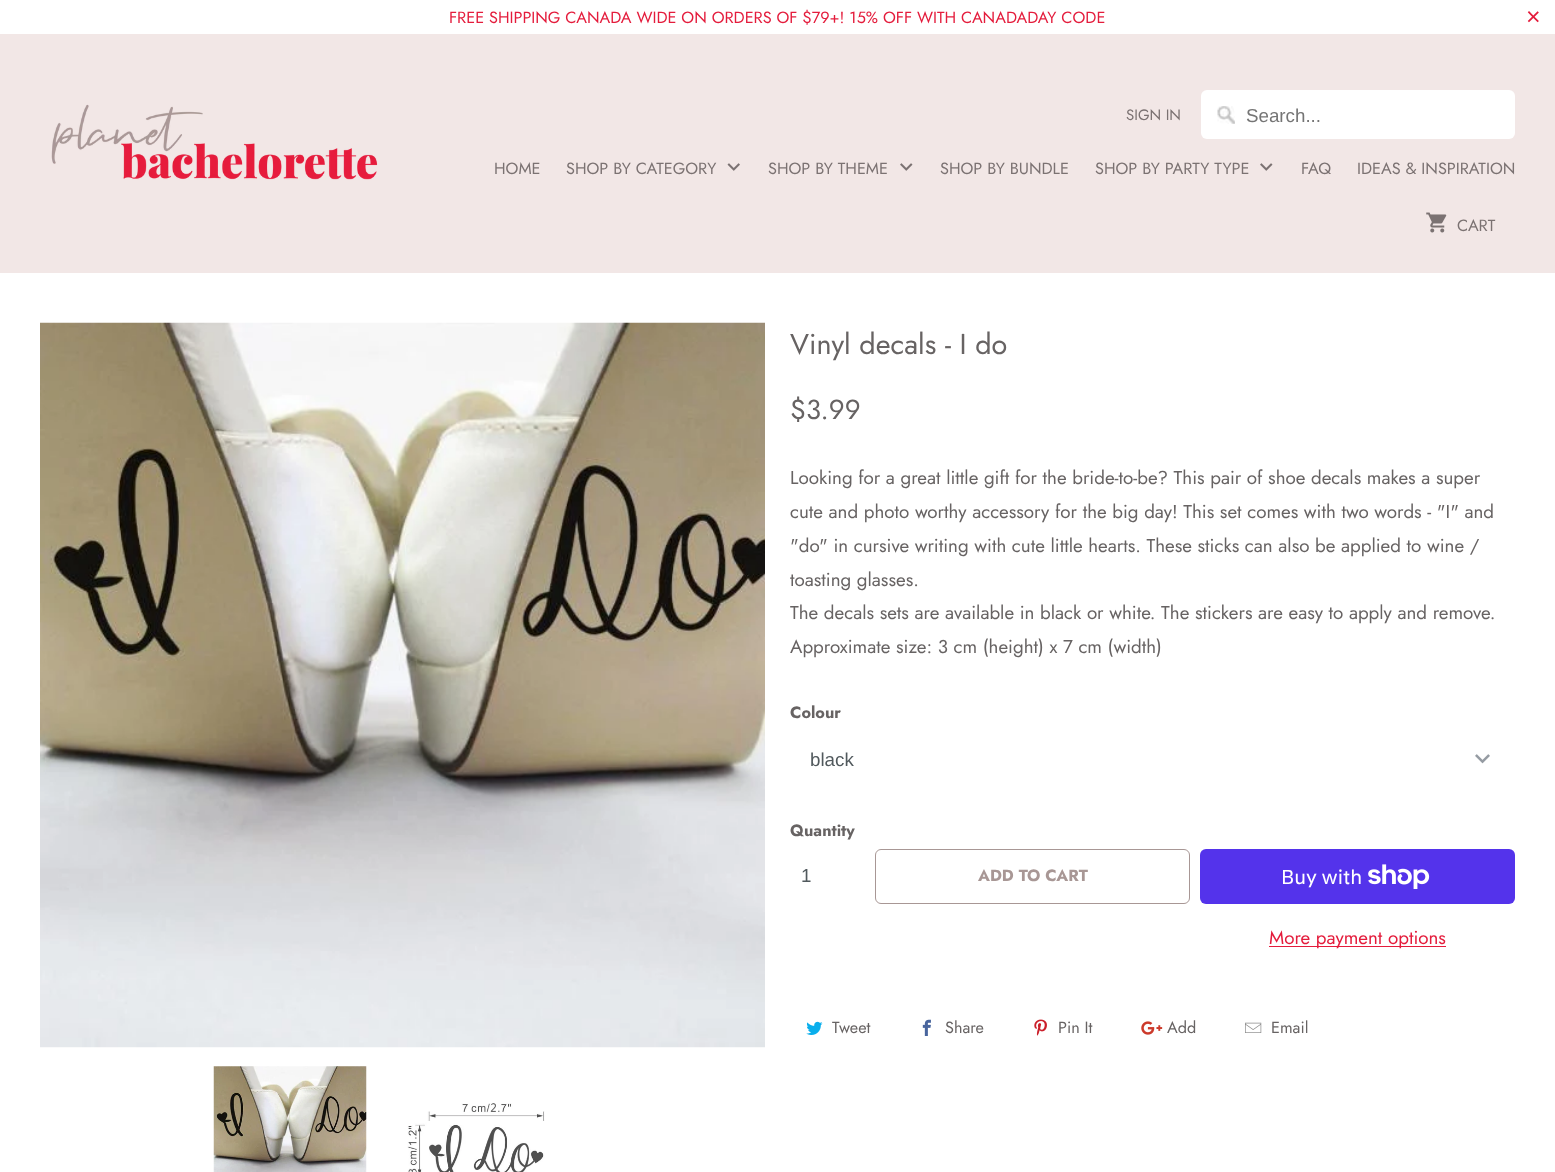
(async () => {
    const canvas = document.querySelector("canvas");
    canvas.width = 1555;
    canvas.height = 1172;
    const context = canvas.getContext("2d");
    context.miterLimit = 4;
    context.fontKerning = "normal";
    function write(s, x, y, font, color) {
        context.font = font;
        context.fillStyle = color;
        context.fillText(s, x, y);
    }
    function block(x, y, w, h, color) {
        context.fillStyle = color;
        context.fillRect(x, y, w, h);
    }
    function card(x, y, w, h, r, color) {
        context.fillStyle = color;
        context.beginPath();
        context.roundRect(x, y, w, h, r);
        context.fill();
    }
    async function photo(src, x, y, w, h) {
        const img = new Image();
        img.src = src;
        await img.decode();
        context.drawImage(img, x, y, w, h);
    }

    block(0, 0, 1555, 1172, "rgb(255, 255, 255)");
    write("FREE SHIPPING CANADA WIDE ON ORDERS OF $79+! 15% OFF WITH CANADADAY CODE", 449, 23, "16.25px Jost", "rgb(228, 28, 60)");
    write("×", 1526, 25, "25px Liberation Sans", "rgb(228, 28, 60)");
    block(0, 34, 1555, 239, "rgb(242, 231, 230)");
    await photo("media/1.png", 51, 104, 327, 76);
    write("SIGN IN", 1126, 120, "15px Jost", "rgb(123, 114, 114)");
    card(1201, 90, 314, 49, 6, "rgb(255, 255, 255)");
    await photo("media/2.png", 1217, 106, 18, 18);
    write("Search...", 1246, 122, "18.75px Liberation Sans", "rgb(117, 117, 117)");
    write("HOME", 494, 174, "16.25px Jost", "rgb(123, 114, 114)");
    write("SHOP BY CATEGORY", 566, 174, "16.25px Jost", "rgb(123, 114, 114)");
    await photo("media/3.png", 727, 163, 13, 8);
    write("SHOP BY THEME", 768, 174, "16.25px Jost", "rgb(123, 114, 114)");
    await photo("media/4.png", 900, 163, 13, 8);
    write("SHOP BY BUNDLE", 940, 174, "16.25px Jost", "rgb(123, 114, 114)");
    write("SHOP BY PARTY TYPE", 1095, 174, "16.25px Jost", "rgb(123, 114, 114)");
    await photo("media/4.png", 1260, 163, 13, 8);
    write("FAQ", 1301, 174, "16.25px Jost", "rgb(123, 114, 114)");
    write("IDEAS & INSPIRATION", 1357, 174, "16.25px Jost", "rgb(123, 114, 114)");
    await photo("media/5.png", 1426, 212, 21, 21);
    write("CART", 1457, 231, "16.25px Jost", "rgb(123, 114, 114)");
    await photo("media/6.png", 40, 322, 725, 726);
    await photo("media/7.png", 213, 1066, 154, 106);
    await photo("media/8.png", 407, 1103, 138, 69);
    write("Vinyl decals - I do", 790, 354, "28.75px Jost", "rgb(103, 99, 99)");
    write("$3.99", 790, 419, "27.5px Jost", "rgb(103, 99, 99)");
    write("Looking for a great little gift for the bride-to-be? This pair of shoe decals makes a super", 790, 484, "18.75px Jost", "rgb(103, 99, 99)");
    write("cute and photo worthy accessory for the big day! This set comes with two words - \"I\" and", 790, 518, "18.75px Jost", "rgb(103, 99, 99)");
    write("\"do\" in cursive writing with cute little hearts. These sticks can also be applied to wine /", 790, 552, "18.75px Jost", "rgb(103, 99, 99)");
    write("toasting glasses.", 790, 586, "18.75px Jost", "rgb(103, 99, 99)");
    write("The decals sets are available in black or white. The stickers are easy to apply and remove.", 790, 619, "18.75px Jost", "rgb(103, 99, 99)");
    write("Approximate size: 3 cm (height) x 7 cm (width)", 790, 653, "18.75px Jost", "rgb(103, 99, 99)");
    write("Colour", 790, 718, "bold 16.25px Jost", "rgb(103, 99, 99)");
    await photo("media/9.png", 1475, 754, 15, 10);
    write("black", 810, 766, "18.75px Liberation Sans", "rgb(81, 89, 93)");
    write("Quantity", 790, 836, "bold 16.25px Jost", "rgb(103, 99, 99)");
    write("1", 801, 882, "18.75px Liberation Sans", "rgb(81, 89, 93)");
    context.beginPath();
    context.roundRect(875.5, 849.5, 314, 54, 5.5);
    context.strokeStyle = "rgb(168, 151, 149)";
    context.stroke();
    write("ADD TO CART", 978, 881, "bold 16.25px Jost", "rgb(168, 151, 149)");
    card(1200, 849, 315, 55, 6, "rgb(84, 51, 235)");
    write("Buy with", 1281, 884, "20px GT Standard", "rgb(255, 255, 255)");
    await photo("media/10.png", 1368, 864, 62, 25);
    block(1269, 946, 177, 1, "rgb(228, 28, 60)");
    write("More payment options", 1269, 944, "18.75px Jost", "rgb(228, 28, 60)");
    await photo("media/11.png", 806, 1021, 17, 14);
    write("Tweet", 832, 1033, "16.25px Jost", "rgb(103, 99, 99)");
    await photo("media/12.png", 922, 1019, 9, 17);
    write("Share", 945, 1033, "16.25px Jost", "rgb(103, 99, 99)");
    await photo("media/13.png", 1034, 1019, 13, 17);
    write("Pin It", 1058, 1033, "16.25px Jost", "rgb(103, 99, 99)");
    await photo("media/14.png", 1141, 1021, 22, 14);
    write("Add", 1167, 1033, "16.25px Jost", "rgb(103, 99, 99)");
    await photo("media/15.png", 1245, 1022, 17, 11);
    write("Email", 1271, 1033, "16.25px Jost", "rgb(103, 99, 99)");
})();
